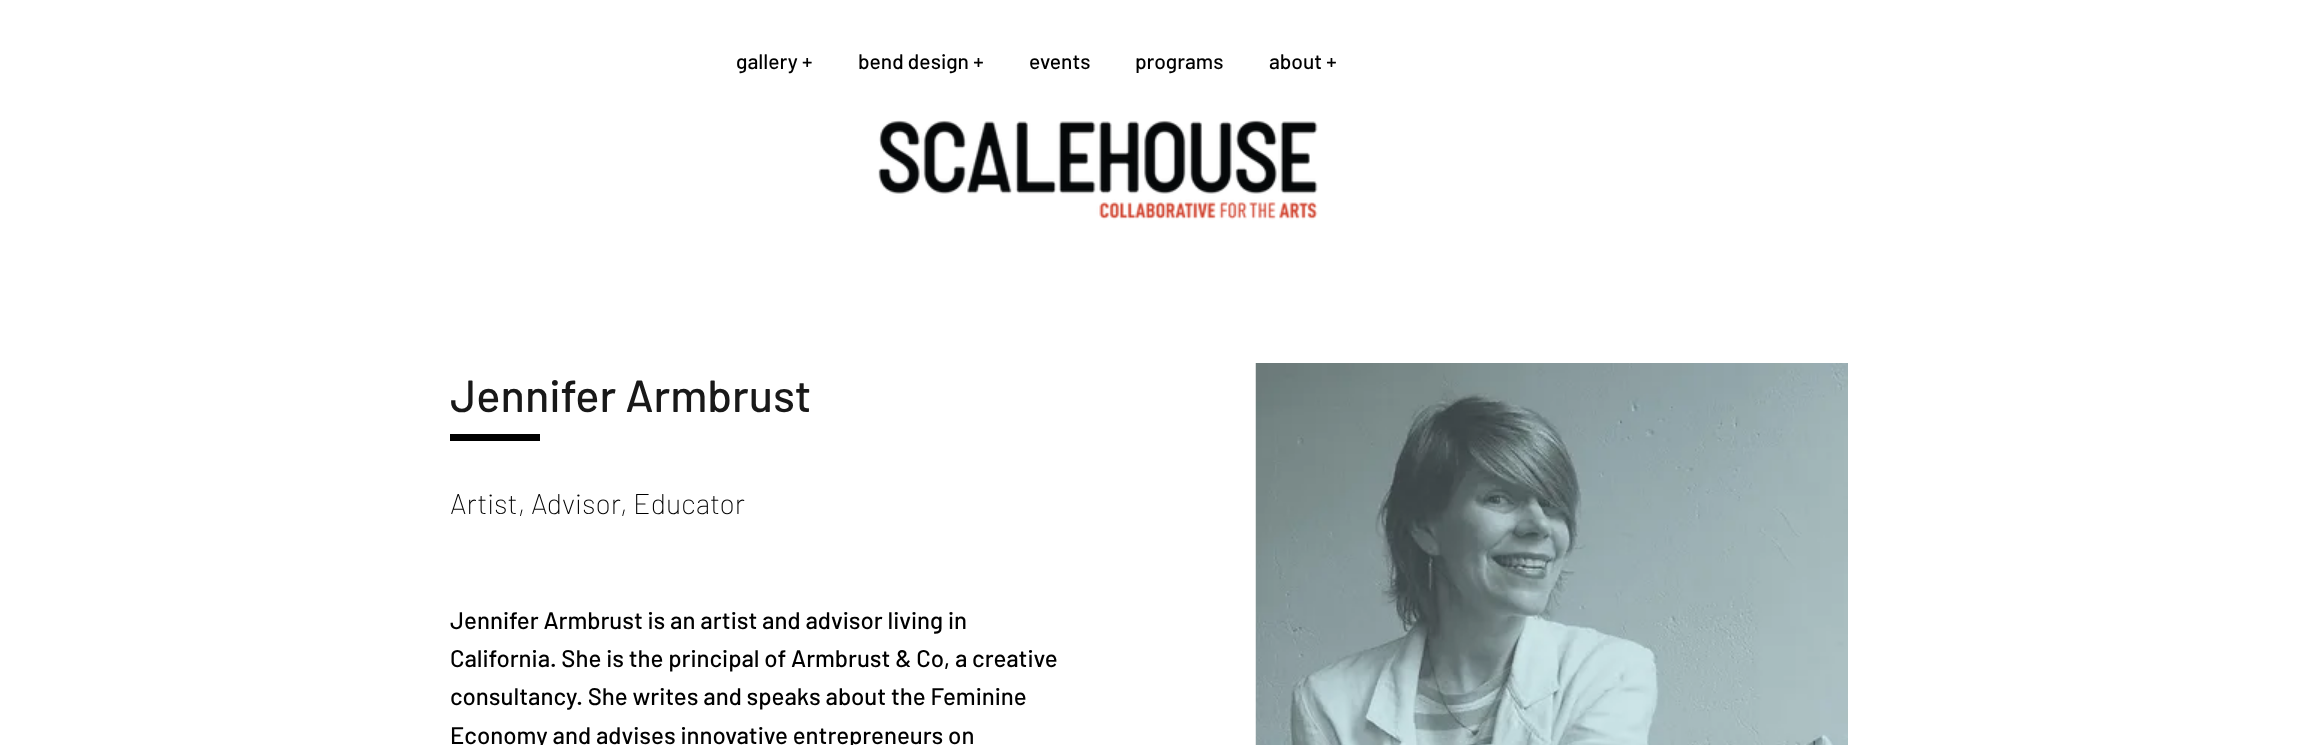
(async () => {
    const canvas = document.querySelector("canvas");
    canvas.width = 2322;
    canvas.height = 745;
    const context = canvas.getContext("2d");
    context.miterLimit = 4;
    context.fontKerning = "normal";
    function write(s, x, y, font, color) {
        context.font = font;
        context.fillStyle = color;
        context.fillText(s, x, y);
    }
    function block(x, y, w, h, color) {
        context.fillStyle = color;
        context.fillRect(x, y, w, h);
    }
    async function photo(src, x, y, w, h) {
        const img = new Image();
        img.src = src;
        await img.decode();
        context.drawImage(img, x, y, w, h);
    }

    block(0, 0, 2322, 745, "rgb(255, 255, 255)");
    write("gallery +", 736, 69, "500 21px Barlow", "rgb(0, 0, 0)");
    write("bend design +", 858, 69, "500 21px Barlow", "rgb(0, 0, 0)");
    write("events", 1029, 69, "500 21px Barlow", "rgb(0, 0, 0)");
    write("programs", 1135, 69, "500 21px Barlow", "rgb(0, 0, 0)");
    write("about +", 1269, 69, "500 21px Barlow", "rgb(0, 0, 0)");
    await photo("media/1.png", 878, 120, 440, 100);
    write("Jennifer Armbrust", 450, 412, "500 45px Barlow", "rgb(24, 24, 24)");
    block(450, 434, 90, 7, "rgb(0, 0, 0)");
    write("Artist, Advisor, Educator", 450, 514, "200 28.5px Barlow", "rgb(0, 0, 0)");
    await photo("media/2.png", 1255, 363, 593, 382);
    write("Jennifer Armbrust is an artist and advisor living in", 450, 629, "500 24px Barlow", "rgb(0, 0, 0)");
    write("California. She is the principal of Armbrust & Co, a creative", 450, 667, "500 24px Barlow", "rgb(0, 0, 0)");
    write("consultancy. She writes and speaks about the Feminine", 450, 705, "500 24px Barlow", "rgb(0, 0, 0)");
    write("Economy and advises innovative entrepreneurs on", 450, 744, "500 24px Barlow", "rgb(0, 0, 0)");
})();
